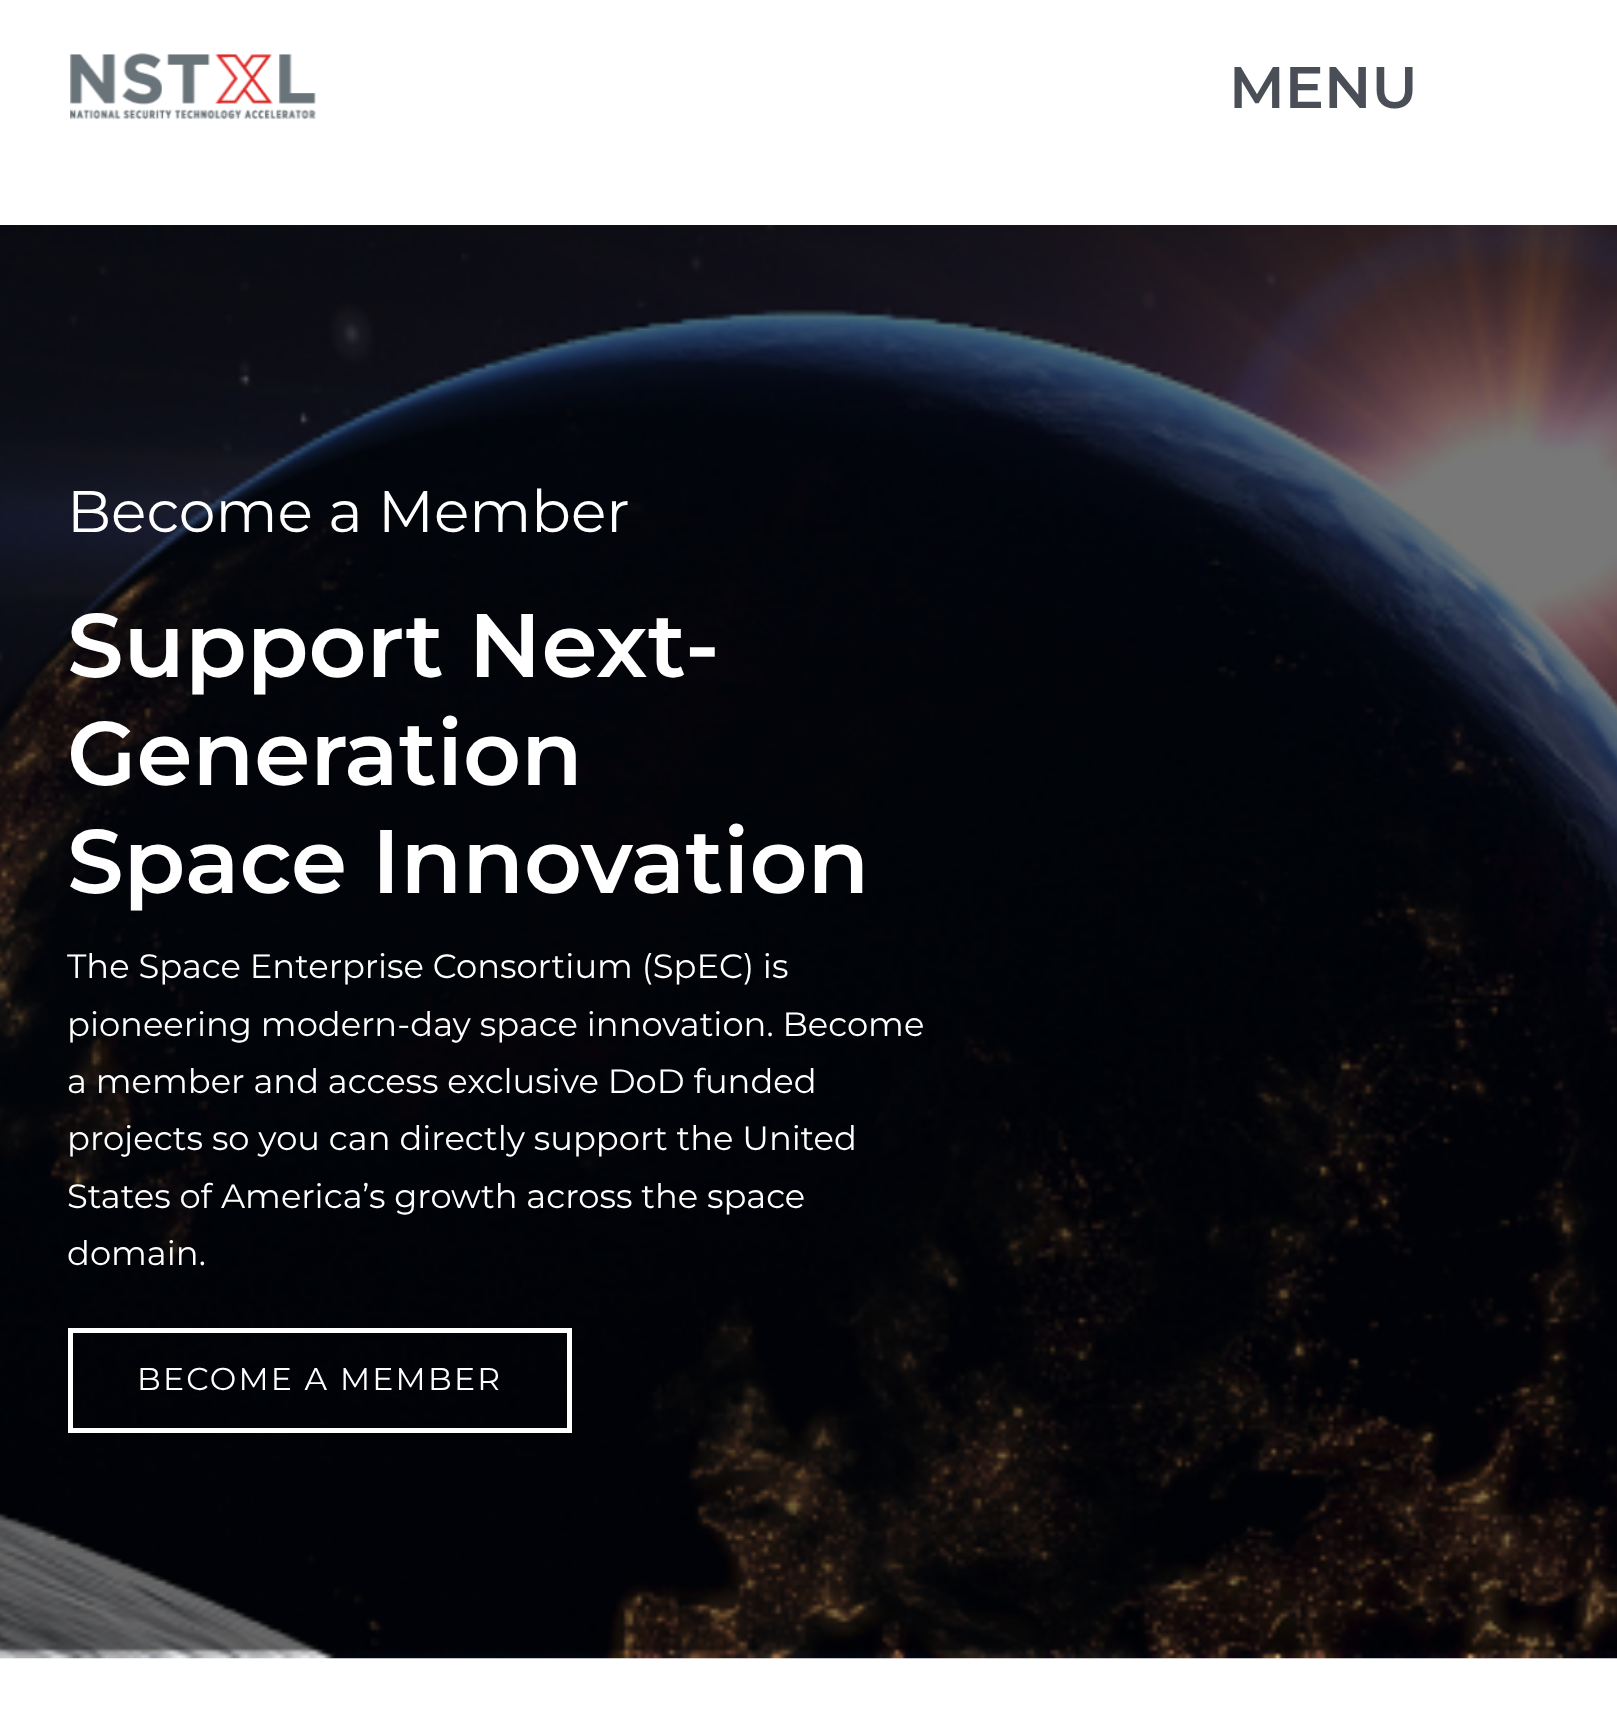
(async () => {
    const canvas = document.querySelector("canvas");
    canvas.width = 1617;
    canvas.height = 1736;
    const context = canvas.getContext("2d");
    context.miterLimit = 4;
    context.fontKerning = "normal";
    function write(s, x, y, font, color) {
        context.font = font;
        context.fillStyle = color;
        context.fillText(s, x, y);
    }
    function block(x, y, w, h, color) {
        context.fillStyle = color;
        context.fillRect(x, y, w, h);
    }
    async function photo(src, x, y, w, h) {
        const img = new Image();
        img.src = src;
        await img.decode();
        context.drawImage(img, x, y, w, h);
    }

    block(0, 0, 1617, 1736, "rgb(255, 255, 255)");
    await photo("media/1.png", 70, 53, 246, 67);
    write("MENU", 1229, 108, "600 58.5px Montserrat", "rgb(74, 78, 87)");
    await photo("media/2.png", 0, 225, 1617, 1434);
    write("Become a Member", 67, 532, "58.5px Montserrat", "rgb(255, 255, 255)");
    write("Support Next-", 67, 677, "600 90px Montserrat", "rgb(255, 255, 255)");
    write("Generation", 67, 785, "600 90px Montserrat", "rgb(255, 255, 255)");
    write("Space Innovation", 67, 893, "600 90px Montserrat", "rgb(255, 255, 255)");
    write("The Space Enterprise Consortium (SpEC) is", 67, 978, "33.75px Montserrat", "rgb(255, 255, 255)");
    write("pioneering modern-day space innovation. Become", 67, 1036, "33.75px Montserrat", "rgb(255, 255, 255)");
    write("a member and access exclusive DoD funded", 67, 1093, "33.75px Montserrat", "rgb(255, 255, 255)");
    write("projects so you can directly support the United", 67, 1150, "33.75px Montserrat", "rgb(255, 255, 255)");
    write("States of America’s growth across the space", 67, 1208, "33.75px Montserrat", "rgb(255, 255, 255)");
    write("domain.", 67, 1265, "33.75px Montserrat", "rgb(255, 255, 255)");
    context.strokeStyle = "rgb(255, 255, 255)";
    context.lineWidth = 5;
    context.strokeRect(70.5, 1330.5, 499, 100);
    context.letterSpacing = "2.25px";
    write("BECOME A MEMBER", 137, 1390, "31.5px Montserrat", "rgb(255, 255, 255)");
})();
